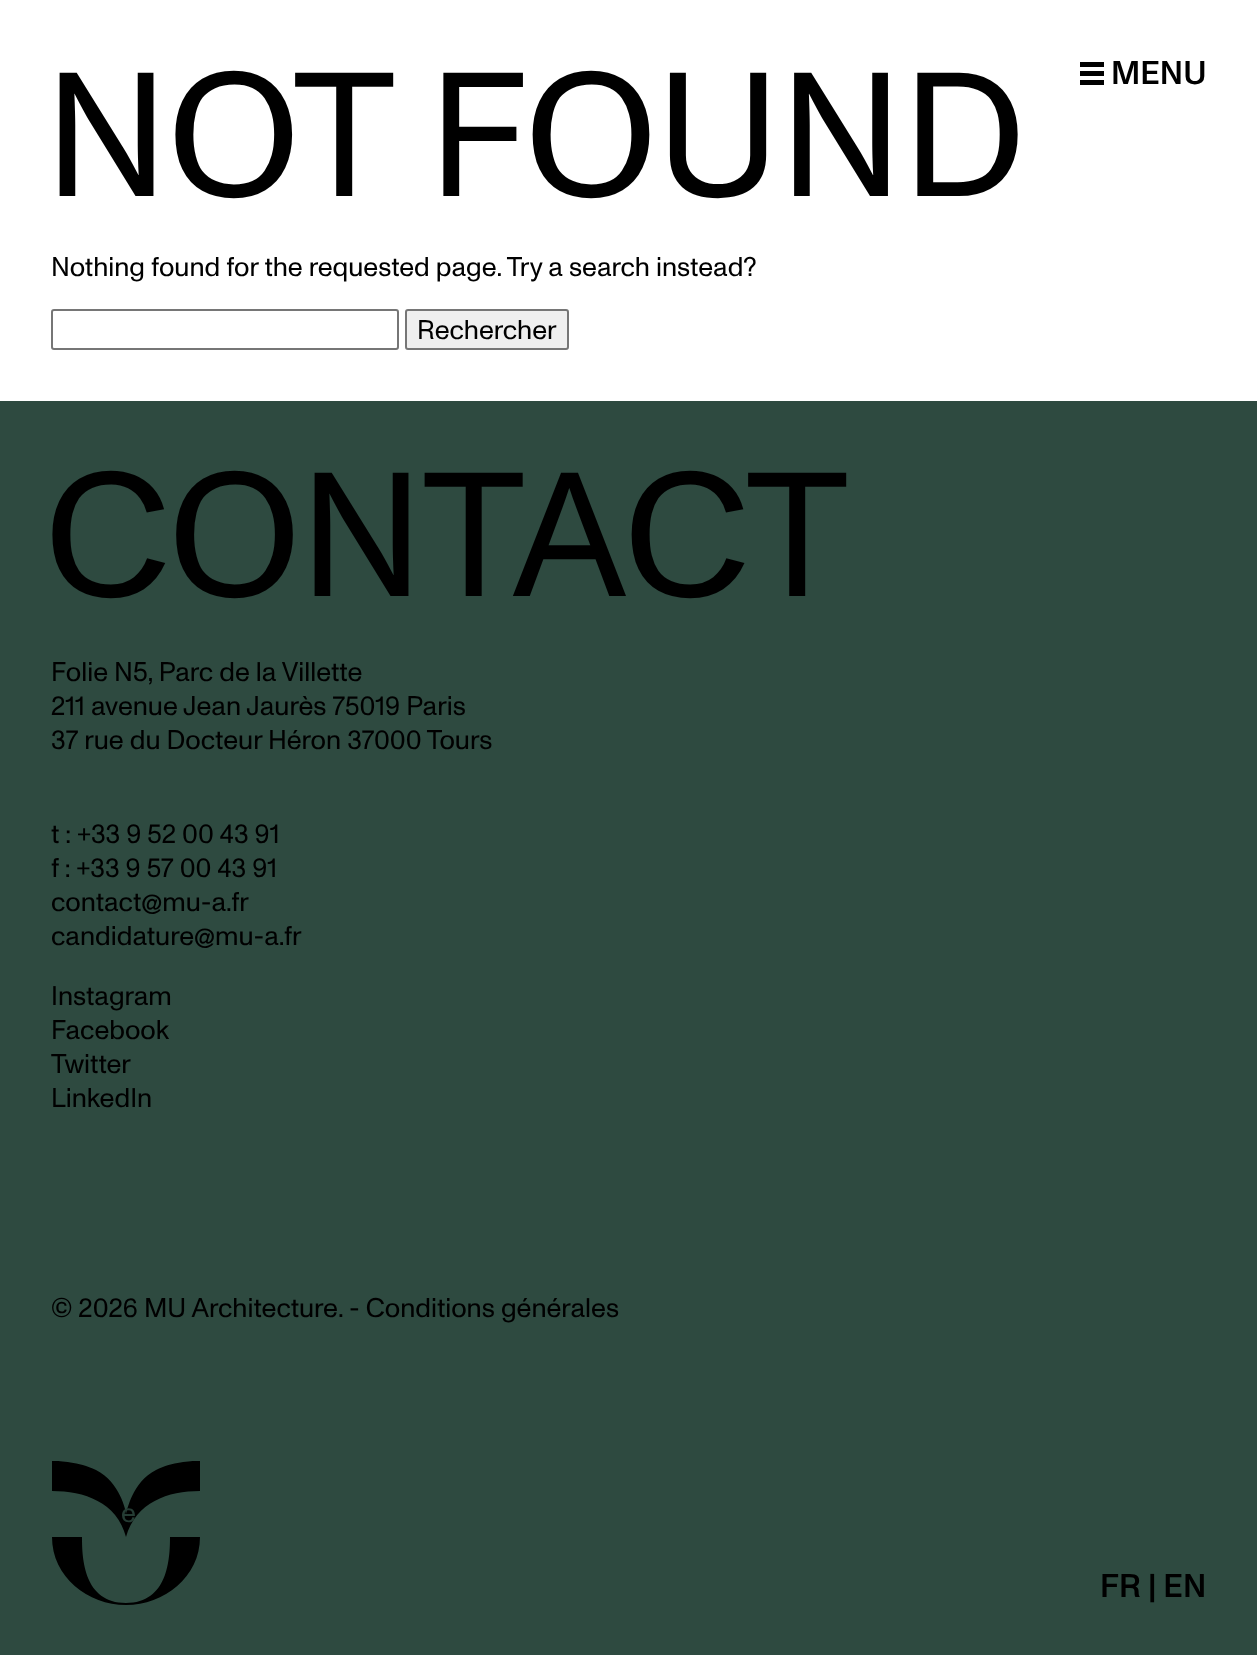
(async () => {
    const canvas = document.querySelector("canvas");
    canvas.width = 1257;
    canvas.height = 1655;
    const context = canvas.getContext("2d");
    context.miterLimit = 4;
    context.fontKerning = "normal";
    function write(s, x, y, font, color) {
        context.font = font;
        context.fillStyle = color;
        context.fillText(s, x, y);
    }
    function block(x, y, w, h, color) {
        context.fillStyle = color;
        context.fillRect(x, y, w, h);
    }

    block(0, 0, 1257, 1655, "rgb(255, 255, 255)");
    block(0, 401, 1257, 1254, "rgb(46, 74, 64)");
    context.fillStyle = "rgb(0, 0, 0)";
    context.beginPath();
    context.moveTo(126, 1605);
    context.bezierCurveTo(88, 1605, 52, 1577, 52, 1537);
    context.lineTo(82, 1537);
    context.bezierCurveTo(82, 1559, 84, 1603, 126, 1603);
    context.bezierCurveTo(168, 1603, 170, 1559, 170, 1537);
    context.lineTo(200, 1537);
    context.bezierCurveTo(200, 1577, 164, 1605, 126, 1605);
    context.closePath();
    context.fill();
    context.beginPath();
    context.moveTo(156, 1470);
    context.bezierCurveTo(132, 1482, 127, 1511, 126, 1514);
    context.bezierCurveTo(126, 1511, 120, 1482, 96, 1470);
    context.bezierCurveTo(75, 1460, 52, 1461, 52, 1461);
    context.lineTo(52, 1491);
    context.bezierCurveTo(84, 1491, 117, 1502, 126, 1537);
    context.bezierCurveTo(136, 1502, 168, 1491, 200, 1491);
    context.lineTo(200, 1461);
    context.bezierCurveTo(198, 1461, 176, 1460, 156, 1470);
    context.closePath();
    context.fill();
    write("e", 121, 1522, "27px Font", "rgb(37, 60, 52)");
    block(1080, 71, 24, 5, "rgb(0, 0, 0)");
    block(1080, 62, 24, 5, "rgb(0, 0, 0)");
    block(1080, 80, 24, 5, "rgb(0, 0, 0)");
    write("MENU", 1111, 84, "500 33px Font", "rgb(0, 0, 0)");
    write("FR | EN", 1100, 1597, "500 33px Font", "rgb(0, 0, 0)");
    write("NOT FOUND", 45, 196, "176px Font", "rgb(0, 0, 0)");
    write("Nothing found for the requested page. Try a search instead?", 51, 276, "27px Font", "rgb(0, 0, 0)");
    context.beginPath();
    context.roundRect(52, 310, 346, 39, 2);
    context.strokeStyle = "rgb(118, 118, 118)";
    context.lineWidth = 2;
    context.stroke();
    context.fillStyle = "rgb(239, 239, 239)";
    context.beginPath();
    context.roundRect(406, 310, 162, 39, 2);
    context.fill();
    context.stroke();
    write("Rechercher", 417, 339, "27px Font", "rgb(0, 0, 0)");
    write("CONTACT", 45, 596, "176px Font", "rgb(0, 0, 0)");
    write("Folie N5, Parc de la Villette", 51, 681, "27px Font", "rgb(0, 0, 0)");
    write("211 avenue Jean Jaurès 75019 Paris", 51, 715, "27px Font", "rgb(0, 0, 0)");
    write("37 rue du Docteur Héron 37000 Tours", 51, 749, "27px Font", "rgb(0, 0, 0)");
    write("t : +33 9 52 00 43 91", 51, 843, "27px Font", "rgb(0, 0, 0)");
    write("f : +33 9 57 00 43 91", 51, 877, "27px Font", "rgb(0, 0, 0)");
    write("contact@mu-a.fr", 51, 911, "27px Font", "rgb(0, 0, 0)");
    write("candidature@mu-a.fr", 51, 945, "27px Font", "rgb(0, 0, 0)");
    write("Instagram", 51, 1005, "27px Font", "rgb(0, 0, 0)");
    write("Facebook", 51, 1039, "27px Font", "rgb(0, 0, 0)");
    write("Twitter", 51, 1073, "27px Font", "rgb(0, 0, 0)");
    write("LinkedIn", 51, 1107, "27px Font", "rgb(0, 0, 0)");
    write("© 2026 MU Architecture. - Conditions générales", 51, 1317, "27px Font", "rgb(0, 0, 0)");
})();
